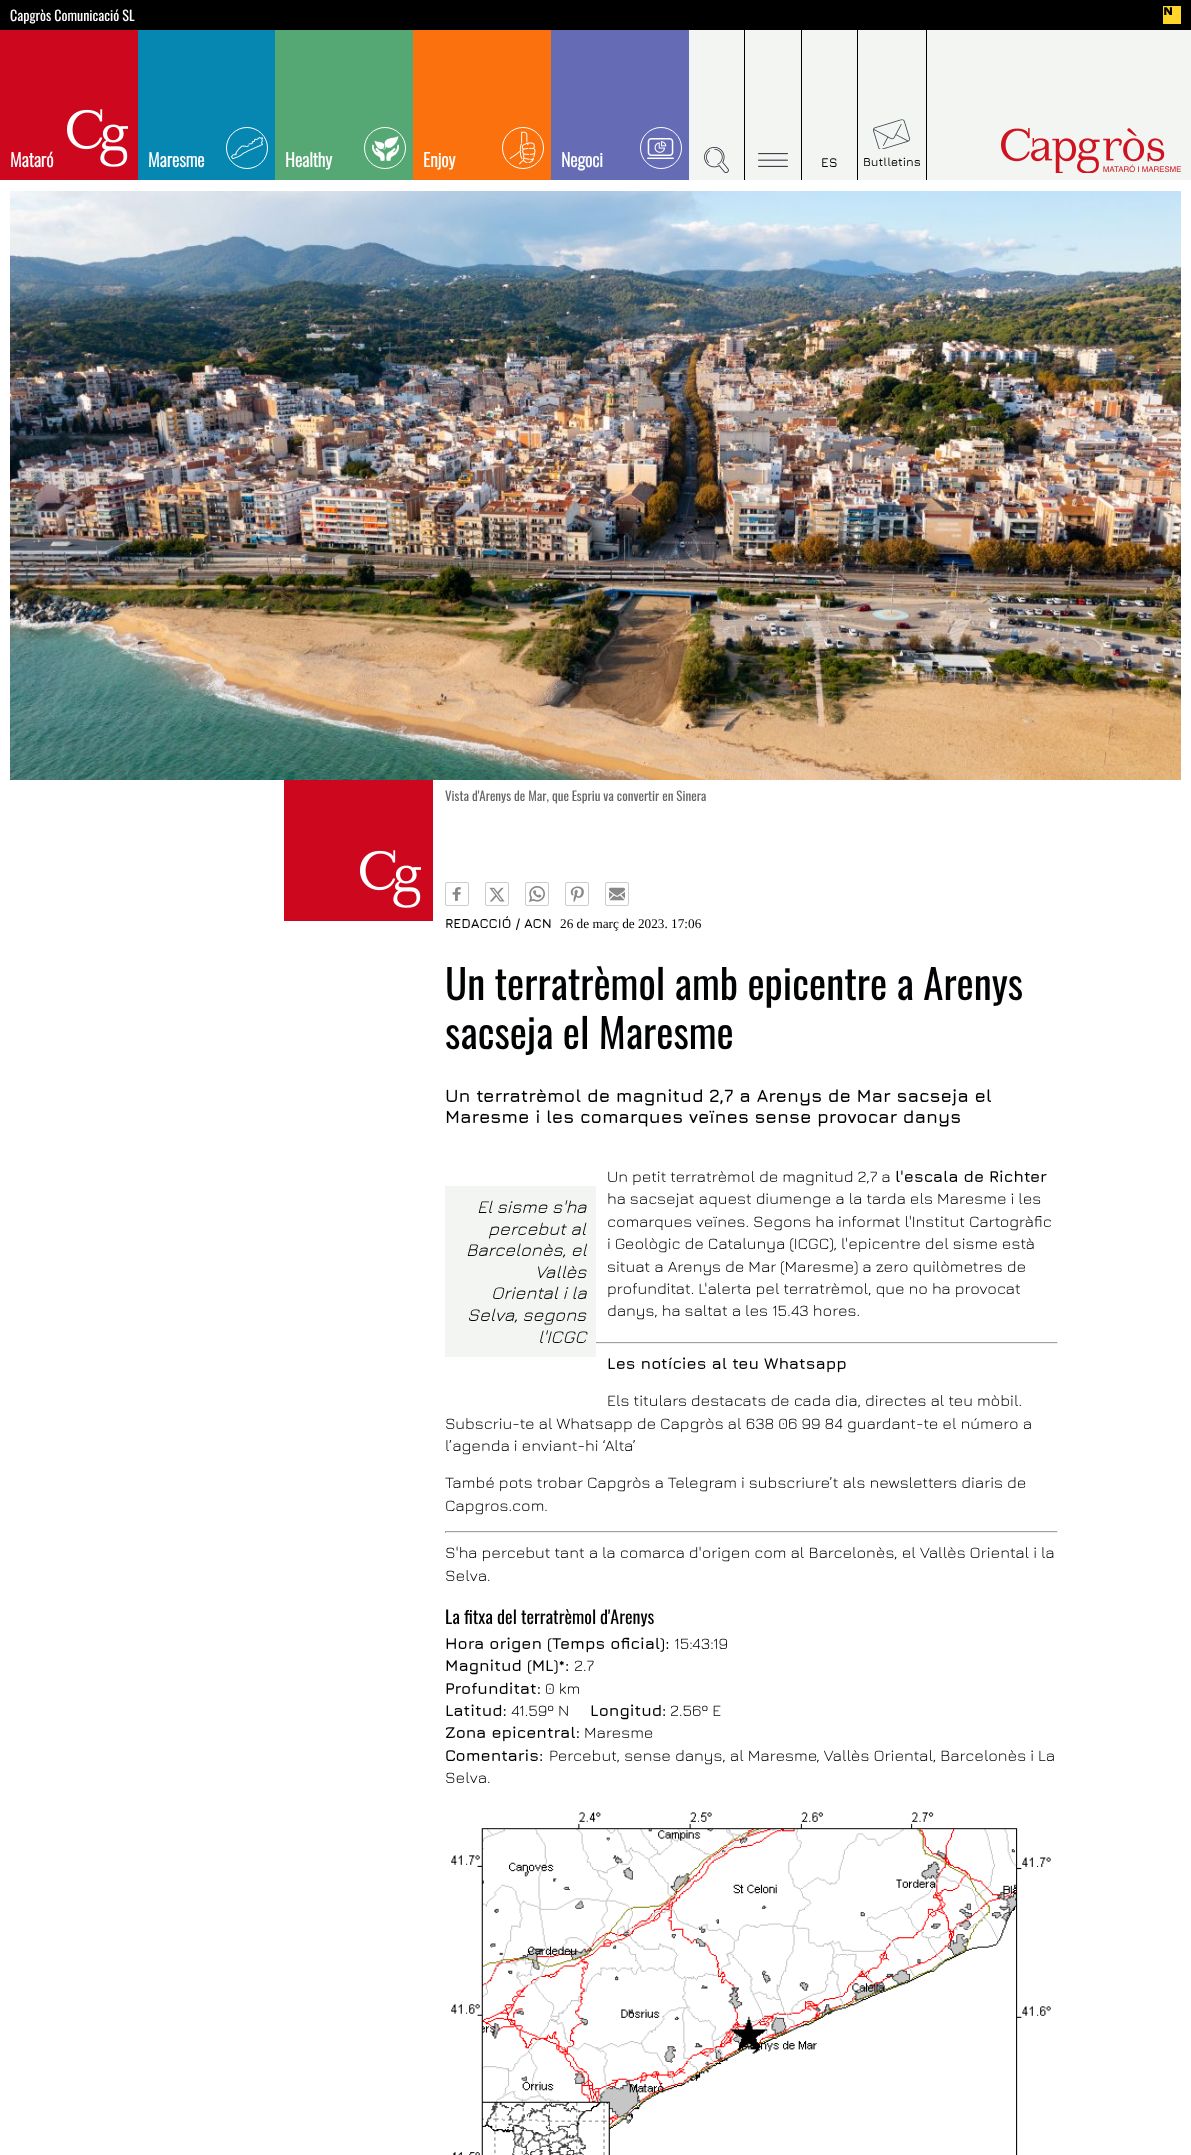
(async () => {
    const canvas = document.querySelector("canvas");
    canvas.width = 1191;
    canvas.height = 2155;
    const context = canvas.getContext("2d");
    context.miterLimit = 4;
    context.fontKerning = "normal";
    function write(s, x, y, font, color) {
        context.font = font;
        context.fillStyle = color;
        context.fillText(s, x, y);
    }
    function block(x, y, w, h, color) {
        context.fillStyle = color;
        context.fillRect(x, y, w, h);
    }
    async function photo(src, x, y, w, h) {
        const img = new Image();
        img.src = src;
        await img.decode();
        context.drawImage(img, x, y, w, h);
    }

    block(0, 0, 1191, 2155, "rgb(255, 255, 255)");
    block(0, 0, 1191, 30, "rgb(0, 0, 0)");
    write("Capgròs Comunicació SL", 10, 21, "14px Oswald", "rgb(255, 255, 255)");
    await photo("media/1.png", 1163, 6, 18, 18);
    block(689, 30, 502, 150, "rgb(243, 245, 242)");
    block(0, 30, 138, 150, "rgb(205, 7, 30)");
    write("Mataró", 10, 167, "bold 18px Oswald", "rgb(255, 255, 255)");
    await photo("media/2.png", 67, 109, 61, 58);
    block(138, 30, 137, 150, "rgb(6, 135, 177)");
    write("Maresme", 148, 167, "bold 18px Oswald", "rgb(255, 255, 255)");
    await photo("media/3.png", 231, 137, 32, 22);
    context.beginPath();
    context.arc(247, 148, 20.5, 0, Math.PI * 2);
    context.strokeStyle = "rgb(255, 255, 255)";
    context.stroke();
    block(275, 30, 138, 150, "rgb(85, 168, 116)");
    write("Healthy", 285, 167, "bold 18px Oswald", "rgb(255, 255, 255)");
    await photo("media/4.png", 372, 136, 27, 25);
    context.beginPath();
    context.arc(385, 148, 20.5, 0, Math.PI * 2);
    context.stroke();
    block(413, 30, 138, 150, "rgb(250, 113, 13)");
    write("Enjoy", 423, 167, "bold 18px Oswald", "rgb(255, 255, 255)");
    await photo("media/5.png", 509, 131, 27, 34);
    context.beginPath();
    context.arc(523, 148, 20.5, 0, Math.PI * 2);
    context.stroke();
    block(551, 30, 138, 150, "rgb(102, 107, 181)");
    write("Negoci", 561, 167, "bold 18px Oswald", "rgb(255, 255, 255)");
    await photo("media/6.png", 647, 138, 27, 21);
    context.beginPath();
    context.arc(661, 148, 20.5, 0, Math.PI * 2);
    context.stroke();
    block(744, 30, 1, 150, "rgb(0, 0, 0)");
    await photo("media/7.png", 704, 147, 25, 26);
    block(801, 30, 1, 150, "rgb(0, 0, 0)");
    await photo("media/8.png", 758, 153, 30, 14);
    block(857, 30, 1, 150, "rgb(0, 0, 0)");
    write("ES", 821, 167, "600 13px Jura", "rgb(1, 2, 3)");
    block(926, 30, 1, 150, "rgb(0, 0, 0)");
    await photo("media/9.png", 873, 119, 37, 30);
    write("Butlletins", 863, 166, "600 12px Jura", "rgb(1, 2, 3)");
    await photo("media/10.png", 1001, 128, 180, 45);
    await photo("media/11.png", 10, 191, 1171, 589);
    block(284, 780, 149, 141, "rgb(205, 7, 30)");
    await photo("media/2.png", 360, 850, 61, 58);
    write("Vista d'Arenys de Mar, que Espriu va convertir en Sinera", 445, 801, "13px Oswald", "rgb(102, 102, 102)");
    context.beginPath();
    context.roundRect(445.5, 882.5, 23, 23, 1.5);
    context.strokeStyle = "rgb(204, 204, 204)";
    context.stroke();
    await photo("media/12.png", 452, 887, 9, 14);
    context.beginPath();
    context.roundRect(485.5, 882.5, 23, 23, 1.5);
    context.stroke();
    await photo("media/13.png", 489, 887, 16, 15);
    context.beginPath();
    context.roundRect(525.5, 882.5, 23, 23, 1.5);
    context.stroke();
    await photo("media/14.png", 529, 886, 16, 16);
    context.beginPath();
    context.roundRect(565.5, 882.5, 23, 23, 1.5);
    context.stroke();
    await photo("media/15.png", 570, 886, 14, 17);
    context.beginPath();
    context.roundRect(605.5, 882.5, 23, 23, 1.5);
    context.stroke();
    await photo("media/16.png", 609, 887, 16, 14);
    write("REDACCIÓ / ACN", 445, 928, "bold 13.25px Jura", "rgb(1, 2, 3)");
    write("26 de març de 2023. 17:06", 560, 928, "13.25px Liberation Serif", "rgb(1, 2, 3)");
    write("Un terratrèmol amb epicentre a Arenys", 445, 1000, "40.9px Oswald", "rgb(1, 2, 3)");
    write("sacseja el Maresme", 445, 1049, "40.9px Oswald", "rgb(1, 2, 3)");
    write("Un terratrèmol de magnitud 2,7 a Arenys de Mar sacseja el", 445, 1102, "bold 18px Jura", "rgb(1, 2, 3)");
    write("Maresme i les comarques veïnes sense provocar danys", 445, 1123, "bold 18px Jura", "rgb(1, 2, 3)");
    block(445, 1186, 151, 171, "rgb(243, 245, 242)");
    write("El sisme s'ha", 477, 1213, "italic 18px Jura", "rgb(1, 2, 3)");
    write("percebut al", 488, 1235, "italic 18px Jura", "rgb(1, 2, 3)");
    write("Barcelonès, el", 466, 1256, "italic 18px Jura", "rgb(1, 2, 3)");
    write("Vallès", 535, 1278, "italic 18px Jura", "rgb(1, 2, 3)");
    write("Oriental i la", 491, 1299, "italic 18px Jura", "rgb(1, 2, 3)");
    write("Selva, segons", 467, 1321, "italic 18px Jura", "rgb(1, 2, 3)");
    write("l'ICGC", 538, 1343, "italic 18px Jura", "rgb(1, 2, 3)");
    write("Un petit terratrèmol de magnitud 2,7 a", 607, 1182, "16px Jura", "rgb(1, 2, 3)");
    write("l'escala de Richter", 895, 1182, "bold 16px Jura", "rgb(1, 2, 3)");
    write("ha sacsejat aquest diumenge a la tarda els Maresme i les", 607, 1204, "16px Jura", "rgb(1, 2, 3)");
    write("comarques veïnes. Segons ha informat l'Institut Cartogràfic", 607, 1227, "16px Jura", "rgb(1, 2, 3)");
    write("i Geològic de Catalunya (ICGC), l'epicentre del sisme està", 607, 1249, "16px Jura", "rgb(1, 2, 3)");
    write("situat a Arenys de Mar (Maresme) a zero quilòmetres de", 607, 1272, "16px Jura", "rgb(1, 2, 3)");
    write("profunditat. L'alerta pel terratrèmol, que no ha provocat", 607, 1294, "16px Jura", "rgb(1, 2, 3)");
    write("danys, ha saltat a les 15.43 hores.", 607, 1316, "16px Jura", "rgb(1, 2, 3)");
    block(596, 1342, 462, 1, "rgb(159, 159, 159)");
    block(1057, 1342, 1, 2, "rgb(238, 238, 238)");
    block(596, 1343, 462, 1, "rgb(238, 238, 238)");
    write("Les notícies al teu Whatsapp", 607, 1369, "bold 16px Jura", "rgb(1, 2, 3)");
    write("Els titulars destacats de cada dia, directes al teu mòbil.", 607, 1406, "16px Jura", "rgb(1, 2, 3)");
    write("Subscriu-te al Whatsapp de Capgròs al 638 06 99 84 guardant-te el número a", 445, 1429, "16px Jura", "rgb(1, 2, 3)");
    write("l’agenda i enviant-hi ‘Alta’", 445, 1451, "16px Jura", "rgb(1, 2, 3)");
    write("També pots trobar Capgròs a Telegram i subscriure’t als newsletters diaris de", 445, 1488, "16px Jura", "rgb(1, 2, 3)");
    write("Capgros.com.", 445, 1511, "16px Jura", "rgb(1, 2, 3)");
    block(445, 1531, 613, 1, "rgb(159, 159, 159)");
    block(1057, 1531, 1, 2, "rgb(238, 238, 238)");
    block(445, 1532, 613, 1, "rgb(238, 238, 238)");
    block(445, 1531, 1, 2, "rgb(159, 159, 159)");
    write("S'ha percebut tant a la comarca d'origen com al Barcelonès, el Vallès Oriental i la", 445, 1558, "16px Jura", "rgb(1, 2, 3)");
    write("Selva.", 445, 1581, "16px Jura", "rgb(1, 2, 3)");
    write("La fitxa del terratrèmol d'Arenys", 445, 1624, "18px Oswald", "rgb(1, 2, 3)");
    write("Hora origen (Temps oficial):", 445, 1649, "bold 16px Jura", "rgb(1, 2, 3)");
    write("15:43:19", 674, 1649, "16px Jura", "rgb(1, 2, 3)");
    write("Magnitud (ML)*:", 445, 1671, "bold 16px Jura", "rgb(1, 2, 3)");
    write("2.7", 574, 1671, "16px Jura", "rgb(1, 2, 3)");
    write("Profunditat:", 445, 1694, "bold 16px Jura", "rgb(1, 2, 3)");
    write("0 km", 545, 1694, "16px Jura", "rgb(1, 2, 3)");
    write("Latitud:", 445, 1716, "bold 16px Jura", "rgb(1, 2, 3)");
    write("41.59º N", 511, 1716, "16px Jura", "rgb(1, 2, 3)");
    write("Longitud:", 590, 1716, "bold 16px Jura", "rgb(1, 2, 3)");
    write("2.56º E", 670, 1716, "16px Jura", "rgb(1, 2, 3)");
    write("Zona epicentral:", 445, 1738, "bold 16px Jura", "rgb(1, 2, 3)");
    write("Maresme", 584, 1738, "16px Jura", "rgb(1, 2, 3)");
    write("Comentaris:", 445, 1761, "bold 16px Jura", "rgb(1, 2, 3)");
    write("Percebut, sense danys, al Maresme, Vallès Oriental, Barcelonès i La", 549, 1761, "16px Jura", "rgb(1, 2, 3)");
    write("Selva.", 445, 1783, "16px Jura", "rgb(1, 2, 3)");
    await photo("media/17.png", 451, 1812, 600, 343);
})();
